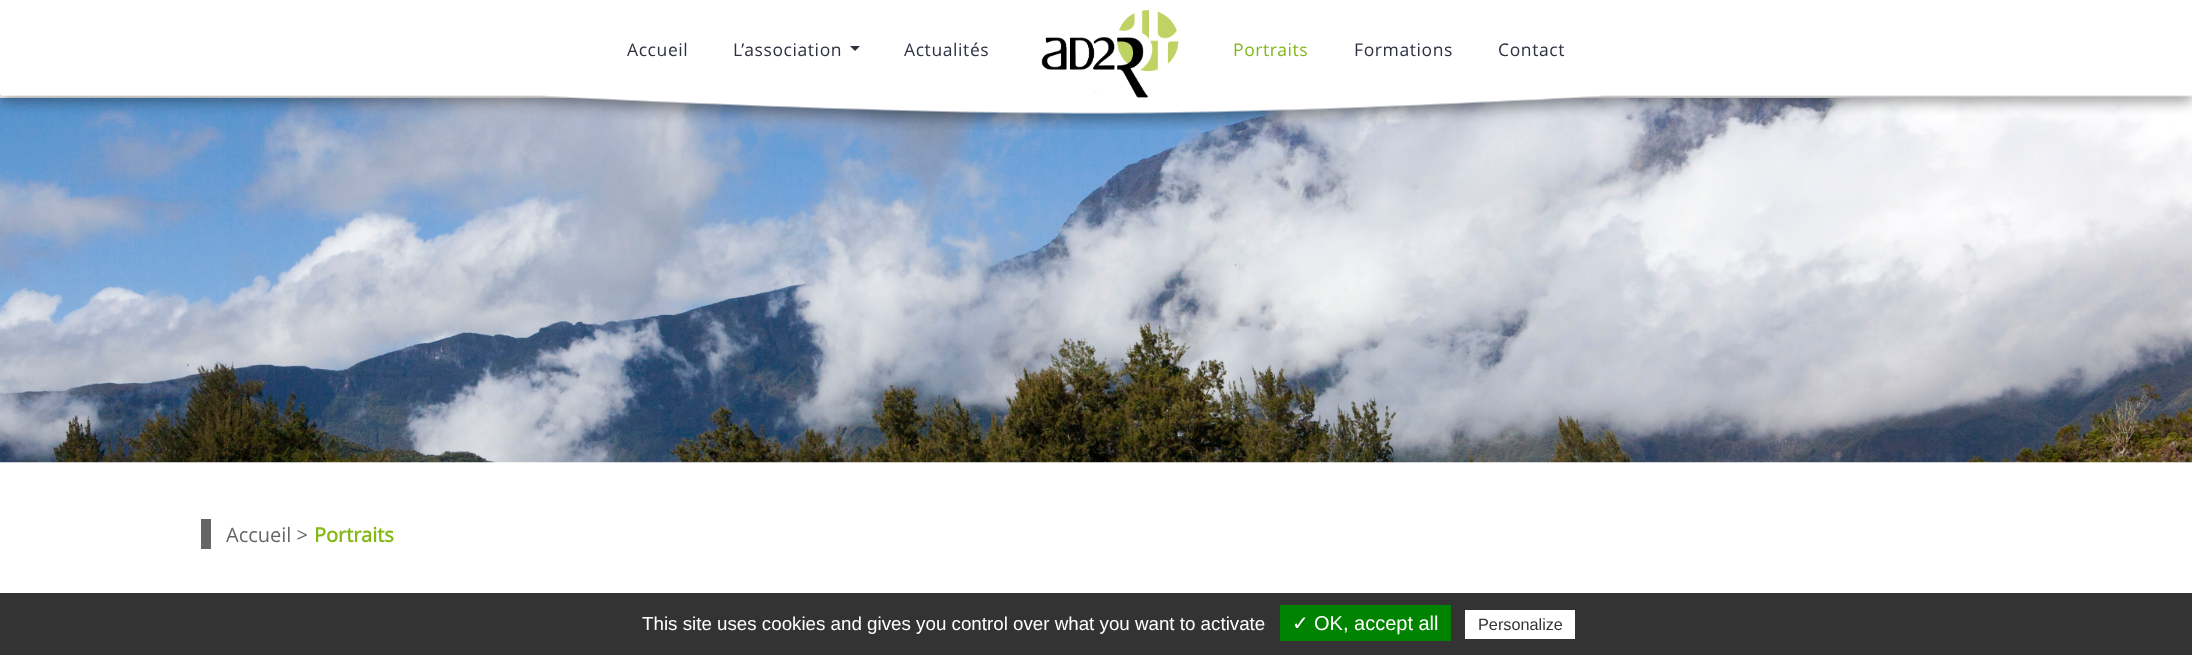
(async () => {
    const canvas = document.querySelector("canvas");
    canvas.width = 2192;
    canvas.height = 655;
    const context = canvas.getContext("2d");
    context.miterLimit = 4;
    context.fontKerning = "normal";
    function write(s, x, y, font, color) {
        context.font = font;
        context.fillStyle = color;
        context.fillText(s, x, y);
    }
    function block(x, y, w, h, color) {
        context.fillStyle = color;
        context.fillRect(x, y, w, h);
    }
    async function photo(src, x, y, w, h) {
        const img = new Image();
        img.src = src;
        await img.decode();
        context.drawImage(img, x, y, w, h);
    }

    block(0, 0, 2192, 655, "rgb(255, 255, 255)");
    context.letterSpacing = "0.6px";
    write("Accueil", 627, 56, "17.5px Open Sans", "rgb(46, 49, 64)");
    write("L’association", 733, 56, "17.5px Open Sans", "rgb(46, 49, 64)");
    context.beginPath();
    context.moveTo(850, 46);
    context.lineTo(860, 46);
    context.lineTo(855, 51);
    context.closePath();
    context.fill();
    write("Actualités", 904, 56, "17.5px Open Sans", "rgb(46, 49, 64)");
    await photo("media/3.png", 0, 98, 2192, 365);
    await photo("media/2.png", 0, 94, 2192, 36);
    await photo("media/1.png", 1041, 10, 138, 88);
    write("Portraits", 1233, 56, "17.5px Open Sans", "rgb(131, 184, 23)");
    write("Formations", 1354, 56, "17.5px Open Sans", "rgb(46, 49, 64)");
    write("Contact", 1498, 56, "17.5px Open Sans", "rgb(46, 49, 64)");
    block(201, 519, 10, 30, "rgb(102, 102, 102)");
    context.letterSpacing = "0px";
    write("Accueil >", 226, 542, "20px Open Sans", "rgb(102, 102, 102)");
    write("Portraits", 314, 542, "bold 20px Open Sans", "rgb(131, 184, 23)");
    block(0, 593, 2192, 62, "rgb(51, 51, 51)");
    write("This site uses cookies and gives you control over what you want to activate", 642, 630, "18.75px Liberation Sans", "rgb(255, 255, 255)");
    block(1280, 605, 171, 36, "rgb(0, 131, 0)");
    write("✓", 1292, 630, "20px DejaVu Sans", "rgb(255, 255, 255)");
    write("OK, accept all", 1314, 630, "20px Liberation Sans", "rgb(255, 255, 255)");
    block(1465, 610, 110, 29, "rgb(255, 255, 255)");
    write("Personalize", 1478, 630, "16.25px Liberation Sans", "rgb(51, 51, 51)");
})();
